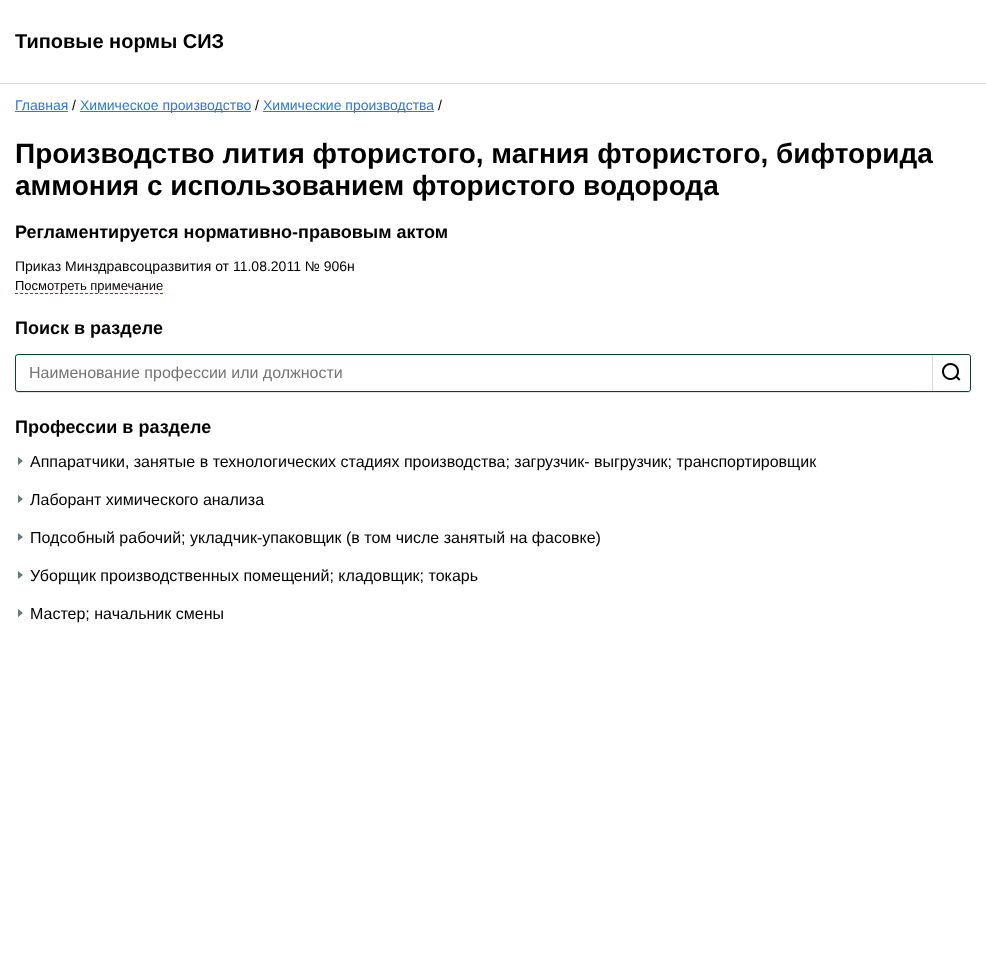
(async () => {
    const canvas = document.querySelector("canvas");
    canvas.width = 986;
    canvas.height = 971;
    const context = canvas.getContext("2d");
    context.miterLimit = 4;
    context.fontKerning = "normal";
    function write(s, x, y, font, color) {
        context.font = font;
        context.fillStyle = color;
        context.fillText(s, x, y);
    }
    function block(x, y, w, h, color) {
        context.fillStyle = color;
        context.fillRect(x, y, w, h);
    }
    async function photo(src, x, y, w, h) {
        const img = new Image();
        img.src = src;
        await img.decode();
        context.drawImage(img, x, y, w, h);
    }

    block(0, 0, 986, 971, "rgb(255, 255, 255)");
    block(0, 83, 986, 1, "rgb(217, 217, 217)");
    write("Типовые нормы СИЗ", 15, 48, "bold 20px Liberation Sans", "rgb(0, 0, 0)");
    write("Главная", 15, 110, "14px Liberation Sans", "rgb(45, 120, 218)");
    block(15, 111, 53, 1, "rgb(45, 120, 218)");
    write("/", 72, 110, "14px Liberation Sans", "rgb(0, 0, 0)");
    block(80, 111, 171, 1, "rgb(45, 120, 218)");
    write("Химическое производство", 80, 110, "14px Liberation Sans", "rgb(45, 120, 218)");
    write("/", 255, 110, "14px Liberation Sans", "rgb(0, 0, 0)");
    block(263, 111, 171, 1, "rgb(45, 120, 218)");
    write("Химические производства", 263, 110, "14px Liberation Sans", "rgb(45, 120, 218)");
    write("/", 438, 110, "14px Liberation Sans", "rgb(0, 0, 0)");
    write("Производство лития фтористого, магния фтористого, бифторида", 15, 163, "bold 28px Liberation Sans", "rgb(0, 0, 0)");
    write("аммония с использованием фтористого водорода", 15, 195, "bold 28px Liberation Sans", "rgb(0, 0, 0)");
    write("Регламентируется нормативно-правовым актом", 15, 238, "bold 18px Liberation Sans", "rgb(0, 0, 0)");
    write("Приказ Минздравсоцразвития от 11.08.2011 № 906н", 15, 271, "14px Liberation Sans", "rgb(0, 0, 0)");
    write("Посмотреть примечание", 15, 290, "13px Liberation Sans", "rgb(0, 0, 0)");
    context.beginPath();
    context.moveTo(15, 293.5);
    context.lineTo(163, 293.5);
    context.strokeStyle = "rgb(20, 121, 0)";
    context.setLineDash([3, 2]);
    context.stroke();
    write("Поиск в разделе", 15, 334, "bold 18px Liberation Sans", "rgb(0, 0, 0)");
    context.fillStyle = "rgb(227, 227, 227)";
    context.beginPath();
    context.moveTo(15, 389);
    context.bezierCurveTo(15, 391, 16, 393, 18, 393);
    context.lineTo(968, 393);
    context.bezierCurveTo(970, 393, 971, 391, 971, 389);
    context.bezierCurveTo(971, 391, 970, 392, 968, 392);
    context.lineTo(18, 392);
    context.bezierCurveTo(16, 392, 15, 391, 15, 389);
    context.closePath();
    context.fill();
    context.fillStyle = "rgb(255, 255, 255)";
    context.beginPath();
    context.roundRect(15.5, 354.5, 955, 37, 2.5);
    context.fill();
    context.strokeStyle = "rgb(9, 65, 47)";
    context.setLineDash([]);
    context.stroke();
    write("Наименование профессии или должности", 29, 378, "16px Liberation Sans", "rgb(117, 117, 117)");
    context.fillStyle = "rgb(255, 255, 255)";
    context.beginPath();
    context.roundRect(932, 355, 38, 36, [0, 3, 3, 0]);
    context.fill();
    await photo("media/1.png", 942, 363, 19, 18);
    block(932, 355, 1, 36, "rgb(214, 214, 235)");
    write("Профессии в разделе", 15, 433, "bold 18px Liberation Sans", "rgb(0, 0, 0)");
    context.fillStyle = "rgb(95, 123, 133)";
    context.beginPath();
    context.moveTo(18, 465);
    context.lineTo(18, 457);
    context.lineTo(23, 461);
    context.closePath();
    context.fill();
    write("Аппаратчики, занятые в технологических стадиях производства; загрузчик- выгрузчик; транспортировщик", 30, 467, "16px Liberation Sans", "rgb(0, 0, 0)");
    context.fillStyle = "rgb(95, 123, 133)";
    context.beginPath();
    context.moveTo(18, 503);
    context.lineTo(18, 495);
    context.lineTo(23, 499);
    context.closePath();
    context.fill();
    write("Лаборант химического анализа", 30, 505, "16px Liberation Sans", "rgb(0, 0, 0)");
    context.fillStyle = "rgb(95, 123, 133)";
    context.beginPath();
    context.moveTo(18, 541);
    context.lineTo(18, 533);
    context.lineTo(23, 537);
    context.closePath();
    context.fill();
    write("Подсобный рабочий; укладчик-упаковщик (в том числе занятый на фасовке)", 30, 543, "16px Liberation Sans", "rgb(0, 0, 0)");
    context.fillStyle = "rgb(95, 123, 133)";
    context.beginPath();
    context.moveTo(18, 579);
    context.lineTo(18, 571);
    context.lineTo(23, 575);
    context.closePath();
    context.fill();
    write("Уборщик производственных помещений; кладовщик; токарь", 30, 581, "16px Liberation Sans", "rgb(0, 0, 0)");
    context.fillStyle = "rgb(95, 123, 133)";
    context.beginPath();
    context.moveTo(18, 617);
    context.lineTo(18, 609);
    context.lineTo(23, 613);
    context.closePath();
    context.fill();
    write("Мастер; начальник смены", 30, 619, "16px Liberation Sans", "rgb(0, 0, 0)");
})();
